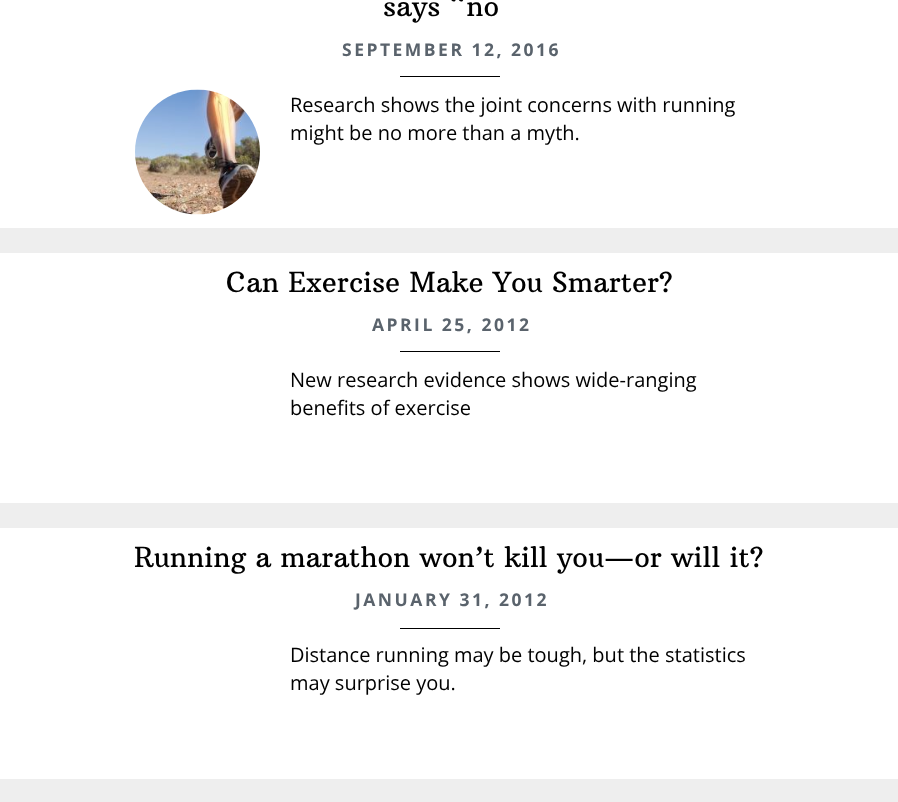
(async () => {
    const canvas = document.querySelector("canvas");
    canvas.width = 898;
    canvas.height = 802;
    const context = canvas.getContext("2d");
    context.miterLimit = 4;
    context.fontKerning = "normal";
    function write(s, x, y, font, color) {
        context.font = font;
        context.fillStyle = color;
        context.fillText(s, x, y);
    }
    function block(x, y, w, h, color) {
        context.fillStyle = color;
        context.fillRect(x, y, w, h);
    }
    async function photo(src, x, y, w, h) {
        const img = new Image();
        img.src = src;
        await img.decode();
        context.drawImage(img, x, y, w, h);
    }

    block(0, 0, 898, 802, "rgb(238, 238, 238)");
    block(0, 0, 898, 228, "rgb(255, 255, 255)");
    write("says “no", 383, 16, "27.5px Arbutus Slab", "rgb(0, 0, 0)");
    context.letterSpacing = "2.5px";
    write("SEPTEMBER 12, 2016", 342, 56, "bold 17.5px Open Sans", "rgb(90, 99, 108)");
    block(400, 76, 100, 1, "rgb(0, 0, 0)");
    await photo("media/1.png", 135, 89, 125, 126);
    context.letterSpacing = "0px";
    write("Research shows the joint concerns with running", 290, 112, "20px Open Sans", "rgb(0, 0, 0)");
    write("might be no more than a myth.", 290, 140, "20px Open Sans", "rgb(0, 0, 0)");
    block(0, 253, 898, 250, "rgb(255, 255, 255)");
    write("Can Exercise Make You Smarter?", 226, 292, "27.5px Arbutus Slab", "rgb(0, 0, 0)");
    context.letterSpacing = "2.5px";
    write("APRIL 25, 2012", 372, 331, "bold 17.5px Open Sans", "rgb(90, 99, 108)");
    block(400, 351, 100, 1, "rgb(0, 0, 0)");
    context.letterSpacing = "0px";
    write("New research evidence shows wide-ranging", 290, 387, "20px Open Sans", "rgb(0, 0, 0)");
    write("benefits of exercise", 290, 415, "20px Open Sans", "rgb(0, 0, 0)");
    block(0, 528, 898, 251, "rgb(255, 255, 255)");
    write("Running a marathon won’t kill you—or will it?", 134, 567, "27.5px Arbutus Slab", "rgb(0, 0, 0)");
    context.letterSpacing = "2.5px";
    write("JANUARY 31, 2012", 355, 606, "bold 17.5px Open Sans", "rgb(90, 99, 108)");
    block(400, 628, 100, 1, "rgb(0, 0, 0)");
    context.letterSpacing = "0px";
    write("Distance running may be tough, but the statistics", 290, 662, "20px Open Sans", "rgb(0, 0, 0)");
    write("may surprise you.", 290, 690, "20px Open Sans", "rgb(0, 0, 0)");
})();
